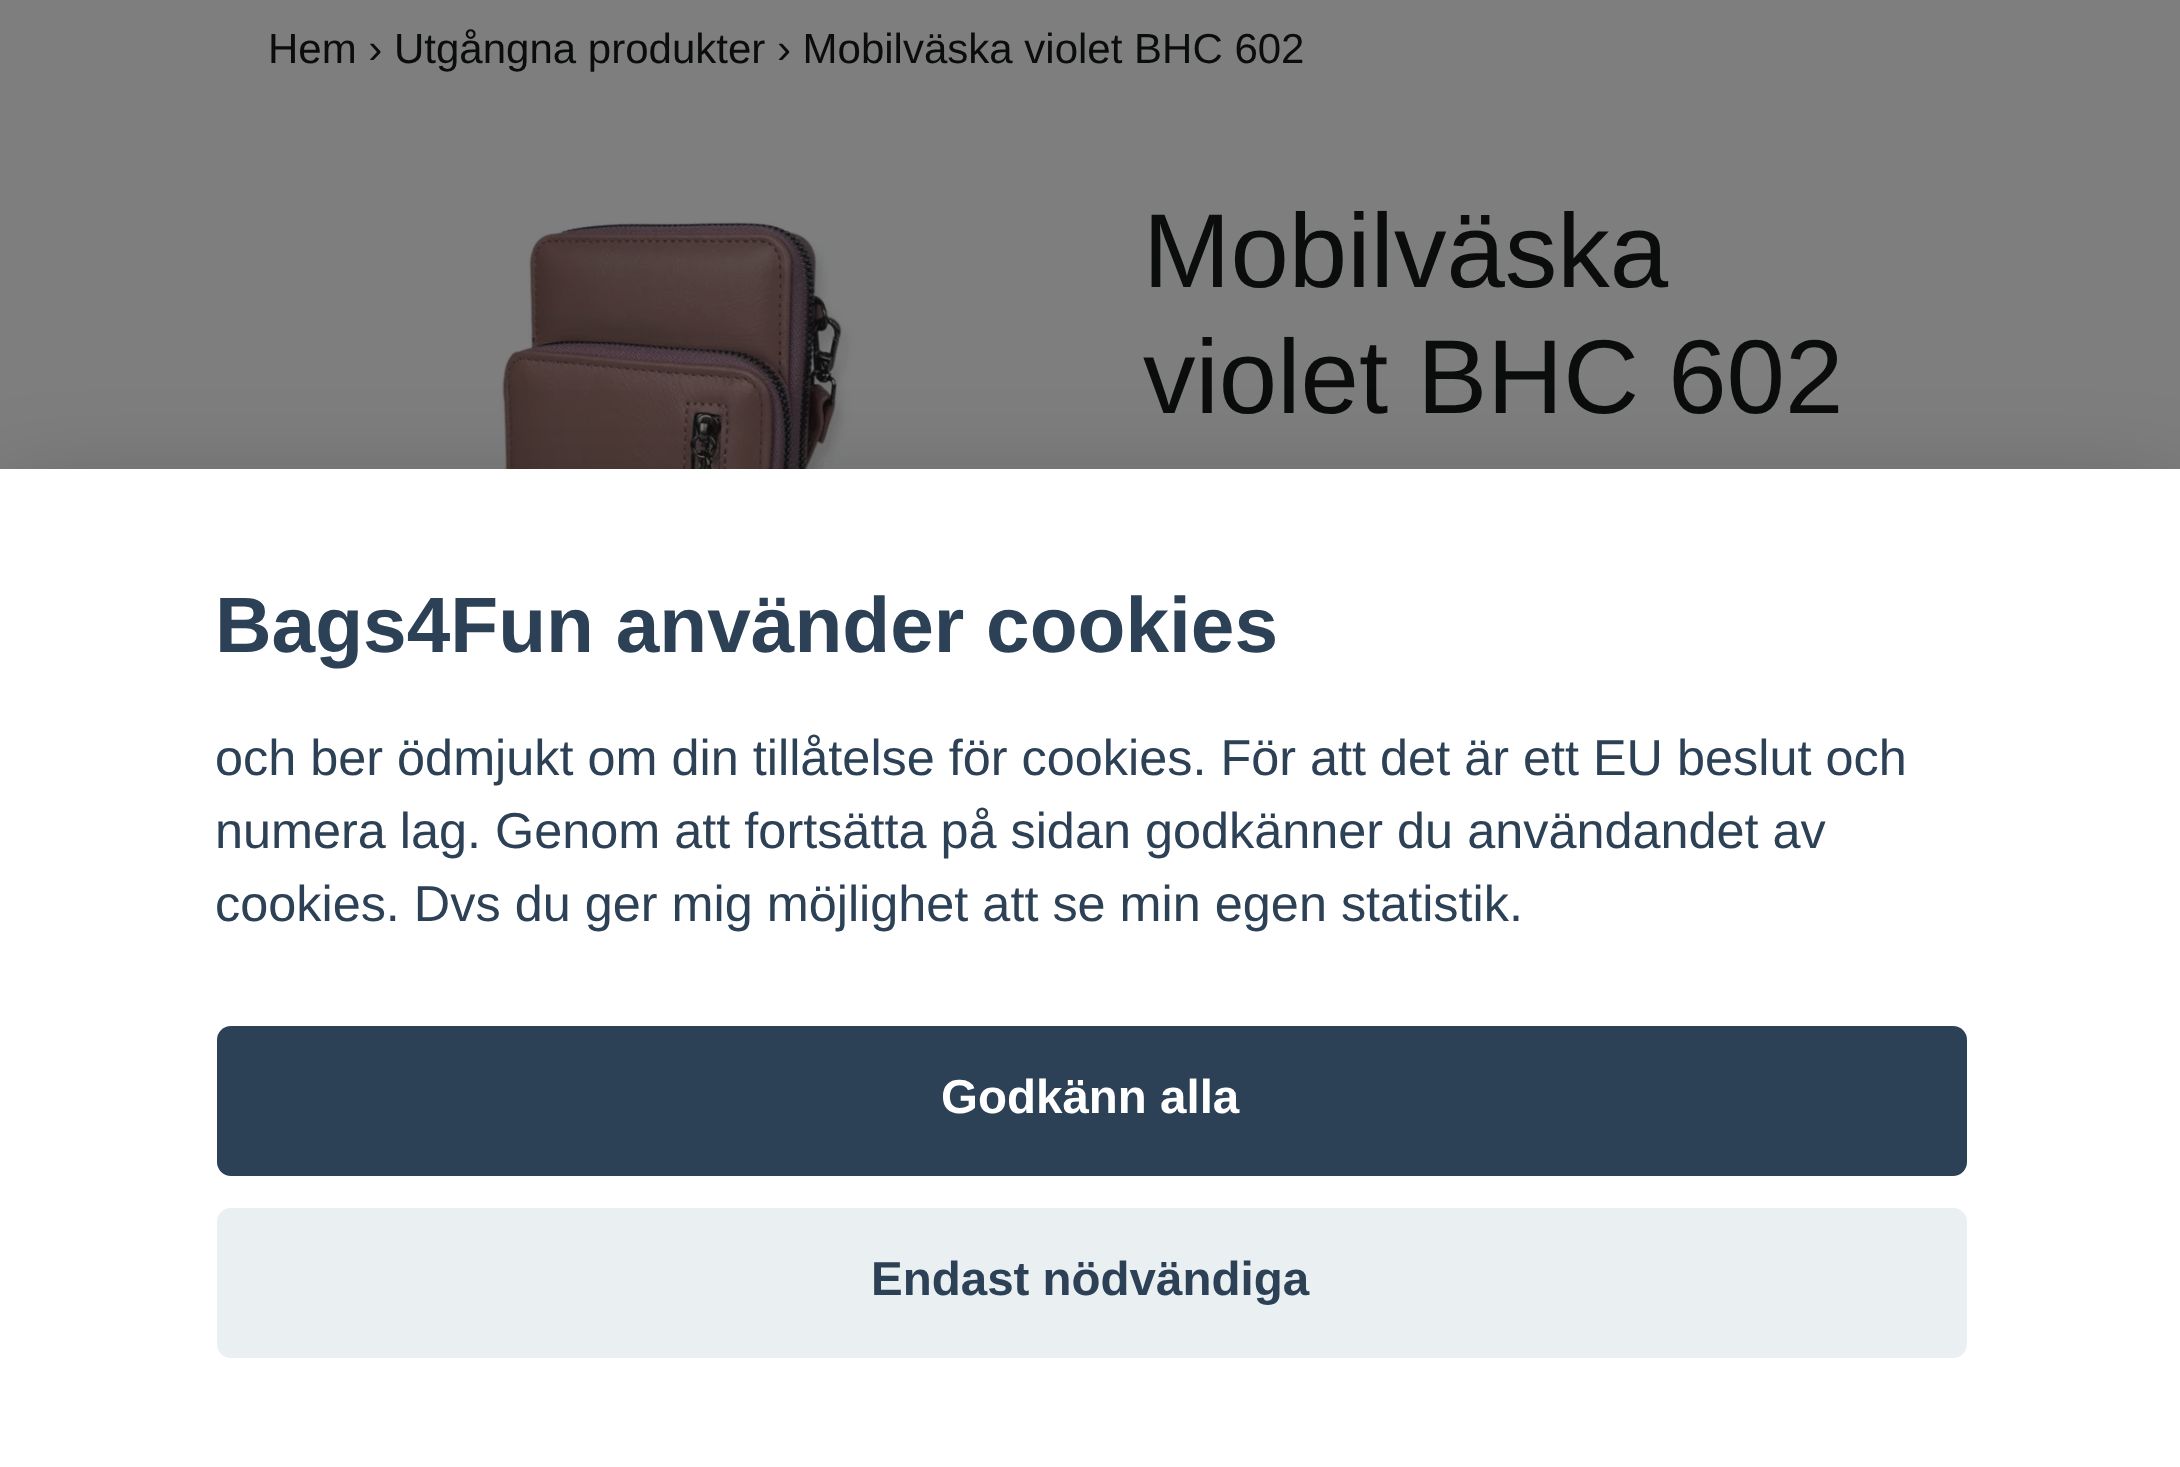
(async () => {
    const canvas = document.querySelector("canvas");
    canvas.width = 2180;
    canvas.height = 1467;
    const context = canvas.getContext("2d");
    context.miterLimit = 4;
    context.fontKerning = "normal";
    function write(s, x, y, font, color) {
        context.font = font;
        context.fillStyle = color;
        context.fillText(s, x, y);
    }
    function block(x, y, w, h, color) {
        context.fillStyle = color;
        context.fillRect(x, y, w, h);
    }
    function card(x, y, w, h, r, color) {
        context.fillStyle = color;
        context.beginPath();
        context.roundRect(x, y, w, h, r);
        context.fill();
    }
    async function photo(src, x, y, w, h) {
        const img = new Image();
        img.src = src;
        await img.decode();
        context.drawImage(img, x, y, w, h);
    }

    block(0, 0, 2180, 1467, "rgb(126, 126, 127)");
    write("Hem › Utgångna produkter › Mobilväska violet BHC 602", 268, 63, "42px Liberation Sans", "rgb(11, 12, 12)");
    await photo("media/1.png", 314, 222, 592, 247);
    write("Mobilväska", 1143, 287, "105px Liberation Sans", "rgb(11, 12, 12)");
    write("violet BHC 602", 1143, 413, "105px Liberation Sans", "rgb(11, 12, 12)");
    context.fillStyle = "rgba(2, 2, 3, 0.28)";
    context.filter = "blur(52.5px)";
    context.beginPath();
    context.rect(0, 504, 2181, 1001);
    context.fill();
    context.filter = "none";
    block(0, 469, 2180, 998, "rgb(255, 255, 255)");
    write("Bags4Fun använder cookies", 215, 652, "bold 78.4px Liberation Sans", "rgb(45, 65, 86)");
    write("och ber ödmjukt om din tillåtelse för cookies. För att det är ett EU beslut och", 215, 775, "50.4px Liberation Sans", "rgb(45, 65, 86)");
    write("numera lag. Genom att fortsätta på sidan godkänner du användandet av", 215, 848, "50.4px Liberation Sans", "rgb(45, 65, 86)");
    write("cookies. Dvs du ger mig möjlighet att se min egen statistik.", 215, 921, "50.4px Liberation Sans", "rgb(45, 65, 86)");
    card(217, 1026, 1750, 150, 14, "rgb(45, 65, 86)");
    write("Godkänn alla", 941, 1113, "bold 47.5px Liberation Sans", "rgb(255, 255, 255)");
    card(217, 1208, 1750, 150, 14, "rgb(234, 239, 242)");
    write("Endast nödvändiga", 871, 1295, "bold 47.5px Liberation Sans", "rgb(45, 65, 86)");
})();
